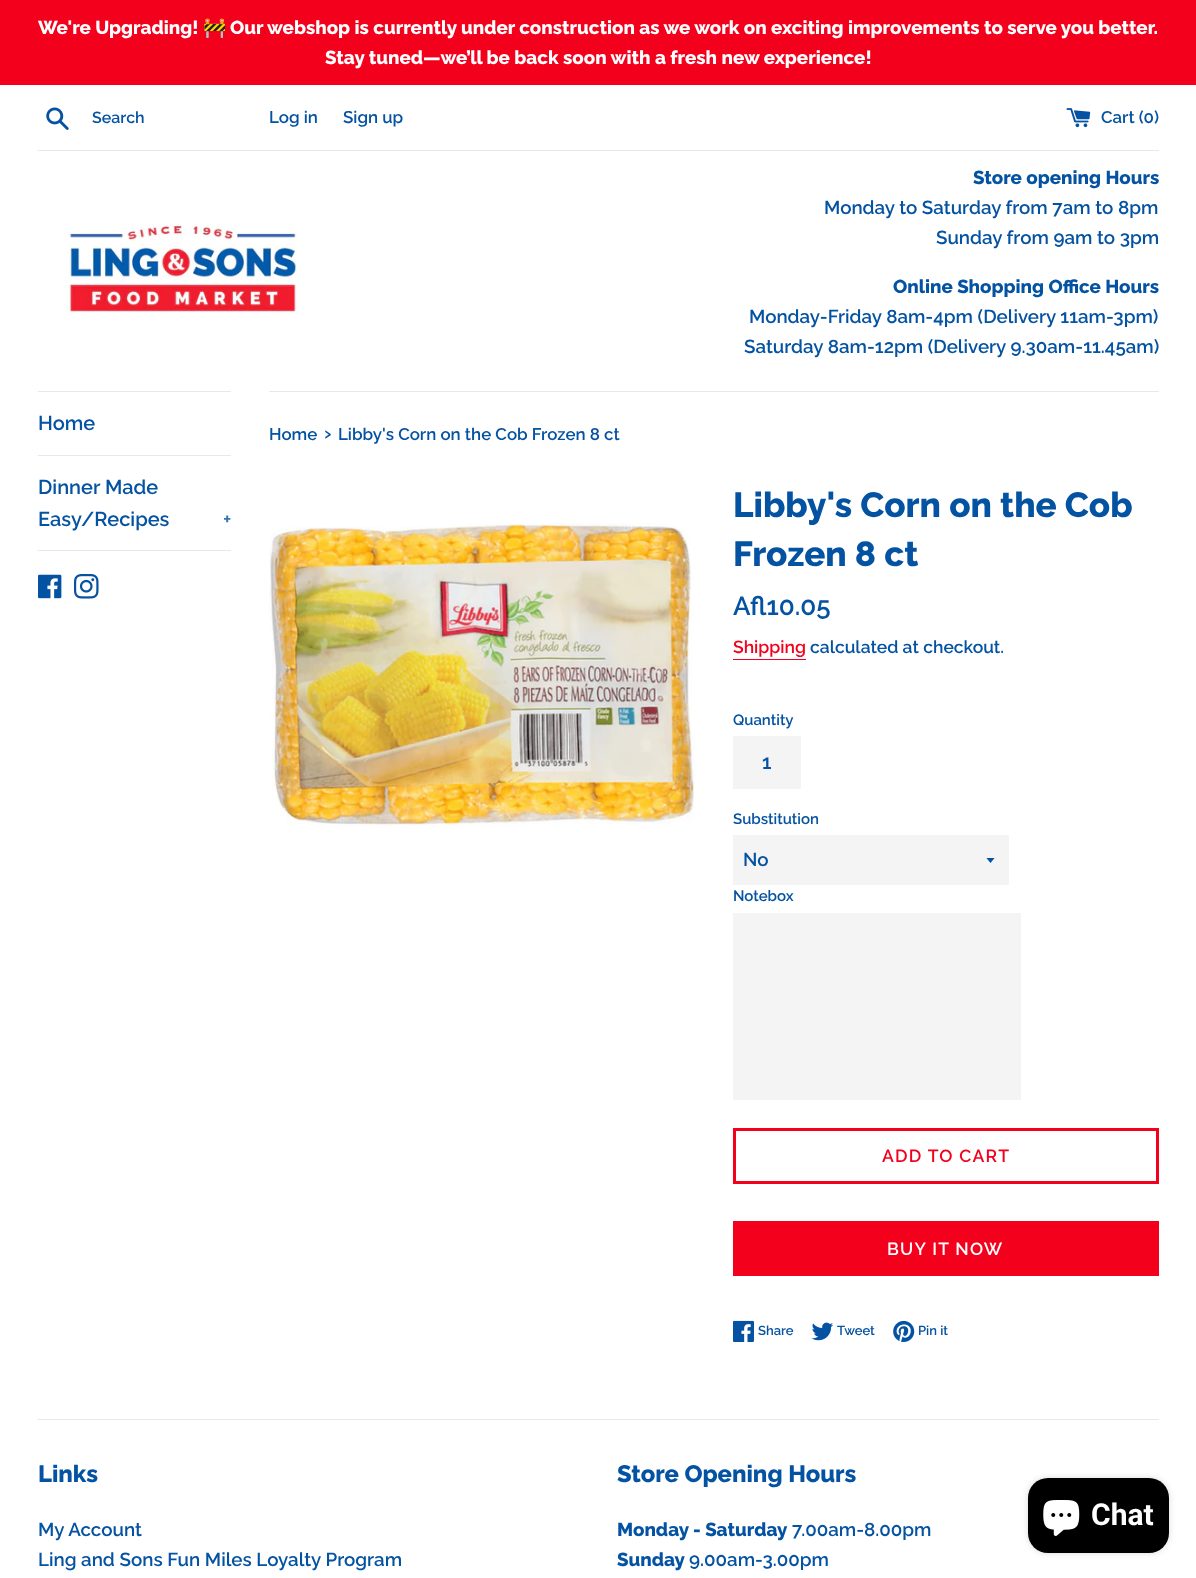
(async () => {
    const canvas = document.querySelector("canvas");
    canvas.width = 1196;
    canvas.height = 1578;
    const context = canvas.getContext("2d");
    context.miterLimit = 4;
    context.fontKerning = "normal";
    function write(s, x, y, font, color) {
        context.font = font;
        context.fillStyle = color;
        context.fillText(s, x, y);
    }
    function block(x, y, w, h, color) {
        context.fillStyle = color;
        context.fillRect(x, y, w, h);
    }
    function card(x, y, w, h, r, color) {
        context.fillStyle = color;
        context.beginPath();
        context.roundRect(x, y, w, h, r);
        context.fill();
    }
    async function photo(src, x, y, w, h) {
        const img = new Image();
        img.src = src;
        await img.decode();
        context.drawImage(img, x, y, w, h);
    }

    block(0, 0, 1196, 1578, "rgb(255, 255, 255)");
    block(0, 0, 1196, 85, "rgb(243, 0, 28)");
    write("We're Upgrading!", 38, 34, "800 18.75px Raleway", "rgb(255, 255, 255)");
    write("🚧", 203, 34, "bold 18.75px Noto Color Emoji", "rgb(255, 255, 255)");
    write("Our webshop is currently under construction as we work on exciting improvements to serve you better.", 230, 34, "800 18.75px Raleway", "rgb(255, 255, 255)");
    write("Stay tuned—we’ll be back soon with a fresh new experience!", 325, 64, "800 18.75px Raleway", "rgb(255, 255, 255)");
    await photo("media/1.png", 46, 107, 23, 23);
    write("Search", 92, 123, "600 16px Raleway", "rgb(4, 82, 162)");
    write("Log in", 269, 123, "600 16.9px Raleway", "rgb(4, 82, 162)");
    write("Sign up", 343, 123, "600 16.9px Raleway", "rgb(4, 82, 162)");
    await photo("media/2.png", 1066, 108, 25, 20);
    write("Cart (0", 1101, 123, "600 16.9px Raleway", "rgb(4, 82, 162)");
    write(")", 1154, 123, "600 16.9px Raleway", "rgb(4, 82, 162)");
    block(38, 150, 1121, 1, "rgb(232, 232, 232)");
    await photo("media/3.png", 65, 223, 237, 91);
    write("Store opening Hours", 973, 184, "800 18.75px Raleway", "rgb(4, 82, 162)");
    write("Monday to Saturday from 7am to 8pm", 824, 214, "600 18.75px Raleway", "rgb(4, 82, 162)");
    write("Sunday from 9am to 3pm", 936, 244, "600 18.75px Raleway", "rgb(4, 82, 162)");
    write("Online Shopping Office Hours", 893, 293, "800 18.75px Raleway", "rgb(4, 82, 162)");
    write("Monday-Friday 8am-4pm (Delivery 11am-3pm)", 749, 323, "600 18.75px Raleway", "rgb(4, 82, 162)");
    write("Saturday 8am-12pm (Delivery 9.30am-11.45am)", 744, 353, "600 18.75px Raleway", "rgb(4, 82, 162)");
    block(38, 391, 193, 1, "rgb(232, 232, 232)");
    block(38, 455, 193, 1, "rgb(232, 232, 232)");
    write("Home", 38, 430, "600 20px Raleway", "rgb(4, 82, 162)");
    block(38, 550, 193, 1, "rgb(232, 232, 232)");
    write("Dinner Made", 38, 494, "600 20px Raleway", "rgb(4, 82, 162)");
    write("Easy/Recipes", 38, 526, "600 20px Raleway", "rgb(4, 82, 162)");
    write("+", 223, 526, "600 20px Raleway", "rgb(54, 117, 181)");
    await photo("media/4.png", 38, 574, 24, 25);
    await photo("media/5.png", 74, 574, 25, 25);
    block(269, 391, 890, 1, "rgb(232, 232, 232)");
    write("Home", 269, 440, "600 16.9px Raleway", "rgb(4, 82, 162)");
    write("›", 324, 440, "600 21px Raleway", "rgb(4, 82, 162)");
    write("Libby's Corn on the Cob Frozen 8 ct", 338, 440, "600 16.9px Raleway", "rgb(4, 82, 162)");
    await photo("media/6.png", 269, 523, 426, 305);
    write("Libby's Corn on the Cob", 733, 517, "800 35px Raleway", "rgb(4, 82, 162)");
    write("Frozen 8 ct", 733, 566, "800 35px Raleway", "rgb(4, 82, 162)");
    write("Afl10.05", 733, 615, "600 26px Raleway", "rgb(4, 82, 162)");
    write("Shipping", 733, 653, "600 17.5px Raleway", "rgb(243, 0, 28)");
    block(733, 659, 73, 1, "rgb(243, 0, 28)");
    write("calculated at checkout.", 810, 653, "600 17.5px Raleway", "rgb(4, 82, 162)");
    write("Quantity", 733, 725, "600 15px Raleway", "rgb(4, 82, 162)");
    block(733, 736, 68, 53, "rgb(244, 244, 244)");
    write("1", 762, 769, "600 20px Raleway", "rgb(4, 82, 162)");
    write("Substitution", 733, 824, "600 15px Raleway", "rgb(4, 82, 162)");
    block(733, 835, 276, 50, "rgb(244, 244, 244)");
    context.save();
    context.beginPath();
    context.rect(986, 858, 10, 6);
    context.clip();
    context.fillStyle = "rgb(4, 82, 162)";
    context.beginPath();
    context.moveTo(986, 857.5);
    context.lineTo(990.5, 863);
    context.lineTo(995, 857.5);
    context.closePath();
    context.fill();
    context.restore();
    write("No", 743, 866, "600 18.75px Raleway", "rgb(4, 82, 162)");
    write("Notebox", 733, 901, "600 15px Raleway", "rgb(4, 82, 162)");
    block(733, 913, 288, 187, "rgb(244, 244, 244)");
    context.strokeStyle = "rgb(243, 0, 28)";
    context.lineWidth = 3;
    context.strokeRect(734.5, 1129.5, 423, 53);
    context.letterSpacing = "1.25px";
    write("ADD TO CART", 882, 1162, "600 17.5px Raleway", "rgb(243, 0, 28)");
    block(733, 1221, 426, 55, "rgb(243, 0, 28)");
    write("BUY IT NOW", 887, 1255, "600 17.5px Raleway", "rgb(255, 255, 255)");
    await photo("media/7.png", 733, 1320, 21, 22);
    context.letterSpacing = "0px";
    write("Share", 758, 1335, "600 13px Raleway", "rgb(4, 82, 162)");
    await photo("media/8.png", 811, 1322, 23, 19);
    write("Tweet", 837, 1335, "600 13px Raleway", "rgb(4, 82, 162)");
    await photo("media/9.png", 893, 1320, 22, 22);
    write("Pin it", 918, 1335, "600 13px Raleway", "rgb(4, 82, 162)");
    block(38, 1419, 1121, 1, "rgb(232, 232, 232)");
    write("Links", 38, 1482, "800 23.75px Raleway", "rgb(4, 82, 162)");
    write("My Account", 38, 1536, "600 18.75px Raleway", "rgb(4, 82, 162)");
    write("Ling and Sons Fun Miles Loyalty Program", 38, 1566, "600 18.75px Raleway", "rgb(4, 82, 162)");
    write("Store Opening Hours", 617, 1482, "800 23.75px Raleway", "rgb(4, 82, 162)");
    write("Monday - Saturday", 617, 1536, "800 18.75px Raleway", "rgb(4, 82, 162)");
    write("7.00am-8.00pm", 792, 1536, "600 18.75px Raleway", "rgb(4, 82, 162)");
    write("Sunday", 617, 1566, "800 18.75px Raleway", "rgb(4, 82, 162)");
    write("9.00am-3.00pm", 689, 1566, "600 18.75px Raleway", "rgb(4, 82, 162)");
    context.fillStyle = "rgba(0, 0, 0, 0.15)";
    context.filter = "blur(3px)";
    context.beginPath();
    context.roundRect(1028, 1478, 141, 75, 20);
    context.fill();
    context.filter = "none";
    card(1028, 1478, 141, 75, 20, "rgb(0, 0, 0)");
    await photo("media/10.png", 1043, 1500, 37, 36);
    write("Chat", 1091, 1525, "bold 30px Roboto", "rgb(255, 255, 255)");
})();
